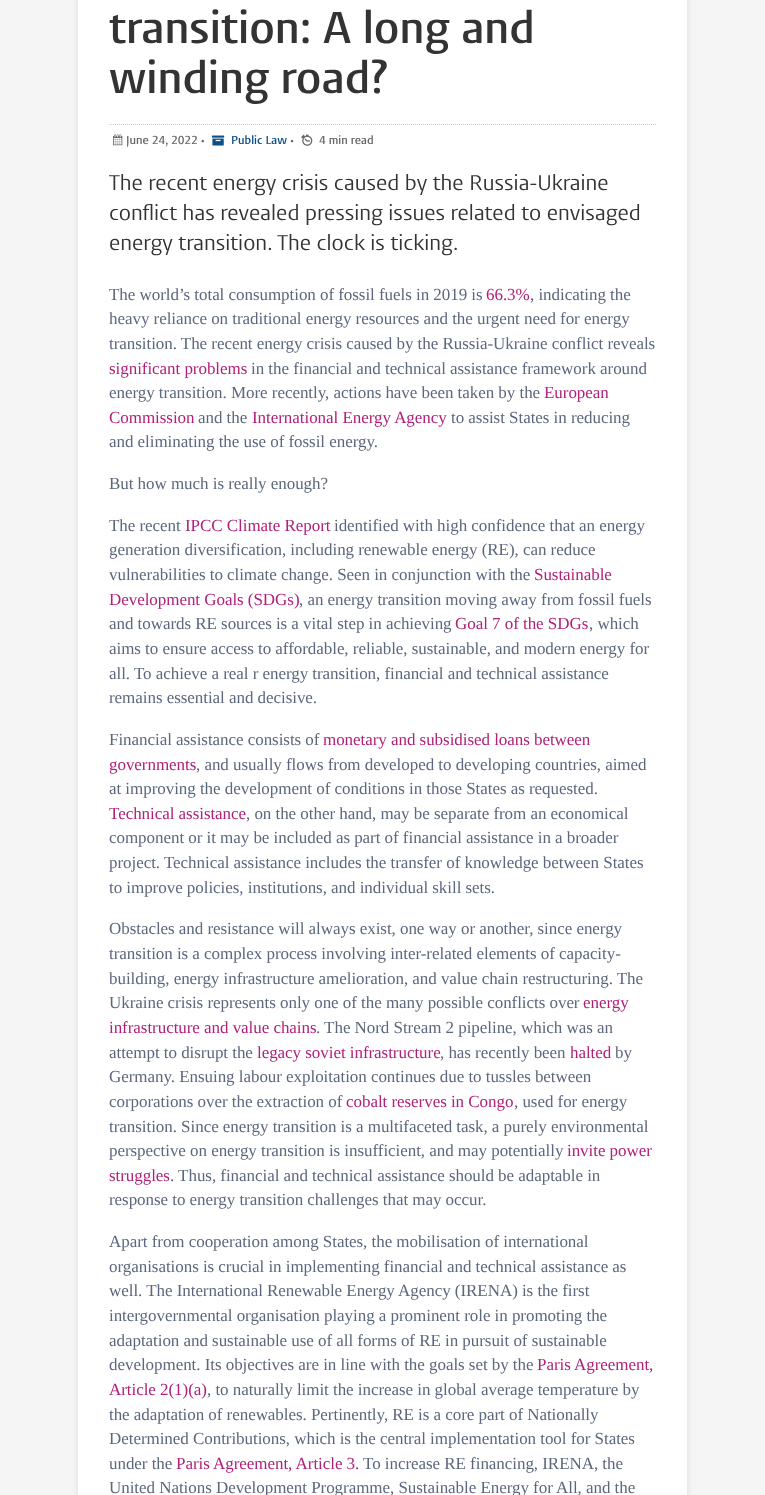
(async () => {
    const canvas = document.querySelector("canvas");
    canvas.width = 765;
    canvas.height = 1495;
    const context = canvas.getContext("2d");
    context.miterLimit = 4;
    context.fontKerning = "normal";
    function write(s, x, y, font, color) {
        context.font = font;
        context.fillStyle = color;
        context.fillText(s, x, y);
    }
    function block(x, y, w, h, color) {
        context.fillStyle = color;
        context.fillRect(x, y, w, h);
    }
    async function photo(src, x, y, w, h) {
        const img = new Image();
        img.src = src;
        await img.decode();
        context.drawImage(img, x, y, w, h);
    }

    block(0, 0, 765, 1495, "rgb(245, 245, 245)");
    context.fillStyle = "rgba(0, 0, 0, 0.1)";
    context.filter = "blur(3px)";
    context.beginPath();
    context.rect(78, -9, 609, 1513);
    context.fill();
    context.filter = "none";
    block(78, 0, 609, 1495, "rgb(255, 255, 255)");
    write("transition: A long and", 109, 43, "600 46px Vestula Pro", "rgb(51, 51, 51)");
    write("winding road?", 109, 93, "600 46px Vestula Pro", "rgb(51, 51, 51)");
    context.beginPath();
    context.moveTo(109, 124.5);
    context.lineTo(656, 124.5);
    context.strokeStyle = "rgb(204, 204, 204)";
    context.setLineDash([1, 1]);
    context.stroke();
    await photo("media/1.png", 113, 134, 10, 12);
    write("June 24, 2022 •", 126, 144, "600 12px Vestula Pro", "rgb(103, 103, 103)");
    await photo("media/2.png", 212, 135, 13, 11);
    write("Public Law", 231, 144, "600 12px Vestula Pro", "rgb(11, 79, 137)");
    write("•", 290, 144, "600 12px Vestula Pro", "rgb(103, 103, 103)");
    await photo("media/3.png", 301, 134, 12, 12);
    write("4 min read", 319, 144, "600 12px Vestula Pro", "rgb(103, 103, 103)");
    write("The recent energy crisis caused by the Russia-Ukraine", 109, 190, "22px Vestula Pro", "rgb(51, 51, 51)");
    write("conflict has revealed pressing issues related to envisaged", 109, 220, "22px Vestula Pro", "rgb(51, 51, 51)");
    write("energy transition. The clock is ticking.", 109, 250, "22px Vestula Pro", "rgb(51, 51, 51)");
    context.letterSpacing = "-0.05px";
    write("The world’s total consumption of fossil fuels in 2019 is", 109, 300, "17px Liberation Serif", "rgb(92, 103, 125)");
    write("66.3%", 486, 300, "17px Liberation Serif", "rgb(176, 32, 121)");
    write(", indicating the", 530, 300, "17px Liberation Serif", "rgb(92, 103, 125)");
    write("heavy reliance on traditional energy resources and the urgent need for energy", 109, 324, "17px Liberation Serif", "rgb(92, 103, 125)");
    write("transition. The recent energy crisis caused by the Russia-Ukraine conflict reveals", 109, 349, "17px Liberation Serif", "rgb(92, 103, 125)");
    write("significant problems", 109, 374, "17px Liberation Serif", "rgb(176, 32, 121)");
    write("in the financial and technical assistance framework around", 251, 374, "17px Liberation Serif", "rgb(92, 103, 125)");
    write("energy transition. More recently, actions have been taken by the", 109, 398, "17px Liberation Serif", "rgb(92, 103, 125)");
    write("European", 544, 398, "17px Liberation Serif", "rgb(176, 32, 121)");
    write("Commission", 109, 423, "17px Liberation Serif", "rgb(176, 32, 121)");
    write("and the", 198, 423, "17px Liberation Serif", "rgb(92, 103, 125)");
    write("International Energy Agency", 252, 423, "17px Liberation Serif", "rgb(176, 32, 121)");
    write("to assist States in reducing", 451, 423, "17px Liberation Serif", "rgb(92, 103, 125)");
    write("and eliminating the use of fossil energy.", 109, 447, "17px Liberation Serif", "rgb(92, 103, 125)");
    write("But how much is really enough?", 109, 489, "17px Liberation Serif", "rgb(92, 103, 125)");
    write("The recent", 109, 531, "17px Liberation Serif", "rgb(92, 103, 125)");
    write("IPCC Climate Report", 185, 531, "17px Liberation Serif", "rgb(176, 32, 121)");
    write("identified with high confidence that an energy", 334, 531, "17px Liberation Serif", "rgb(92, 103, 125)");
    write("generation diversification, including renewable energy (RE), can reduce", 109, 555, "17px Liberation Serif", "rgb(92, 103, 125)");
    write("vulnerabilities to climate change. Seen in conjunction with the", 109, 580, "17px Liberation Serif", "rgb(92, 103, 125)");
    write("Sustainable", 534, 580, "17px Liberation Serif", "rgb(176, 32, 121)");
    write("Development Goals (SDGs)", 109, 605, "17px Liberation Serif", "rgb(176, 32, 121)");
    write(", an energy transition moving away from fossil fuels", 299, 605, "17px Liberation Serif", "rgb(92, 103, 125)");
    write("and towards RE sources is a vital step in achieving", 109, 629, "17px Liberation Serif", "rgb(92, 103, 125)");
    write("Goal 7 of the SDGs", 455, 629, "17px Liberation Serif", "rgb(176, 32, 121)");
    write(", which", 589, 629, "17px Liberation Serif", "rgb(92, 103, 125)");
    write("aims to ensure access to affordable, reliable, sustainable, and modern energy for", 109, 654, "17px Liberation Serif", "rgb(92, 103, 125)");
    write("all. To achieve a real r energy transition, financial and technical assistance", 109, 679, "17px Liberation Serif", "rgb(92, 103, 125)");
    write("remains essential and decisive.", 109, 703, "17px Liberation Serif", "rgb(92, 103, 125)");
    write("Financial assistance consists of", 109, 745, "17px Liberation Serif", "rgb(92, 103, 125)");
    write("monetary and subsidised loans between", 323, 745, "17px Liberation Serif", "rgb(176, 32, 121)");
    write("governments", 109, 770, "17px Liberation Serif", "rgb(176, 32, 121)");
    write(", and usually flows from developed to developing countries, aimed", 196, 770, "17px Liberation Serif", "rgb(92, 103, 125)");
    write("at improving the development of conditions in those States as requested.", 109, 794, "17px Liberation Serif", "rgb(92, 103, 125)");
    write("Technical assistance", 109, 819, "17px Liberation Serif", "rgb(176, 32, 121)");
    write(", on the other hand, may be separate from an economical", 246, 819, "17px Liberation Serif", "rgb(92, 103, 125)");
    write("component or it may be included as part of financial assistance in a broader", 109, 843, "17px Liberation Serif", "rgb(92, 103, 125)");
    write("project. Technical assistance includes the transfer of knowledge between States", 109, 868, "17px Liberation Serif", "rgb(92, 103, 125)");
    write("to improve policies, institutions, and individual skill sets.", 109, 893, "17px Liberation Serif", "rgb(92, 103, 125)");
    write("Obstacles and resistance will always exist, one way or another, since energy", 109, 934, "17px Liberation Serif", "rgb(92, 103, 125)");
    write("transition is a complex process involving inter-related elements of capacity-", 109, 959, "17px Liberation Serif", "rgb(92, 103, 125)");
    write("building, energy infrastructure amelioration, and value chain restructuring. The", 109, 984, "17px Liberation Serif", "rgb(92, 103, 125)");
    write("Ukraine crisis represents only one of the many possible conflicts over", 109, 1008, "17px Liberation Serif", "rgb(92, 103, 125)");
    write("energy", 583, 1008, "17px Liberation Serif", "rgb(176, 32, 121)");
    write("infrastructure and value chains", 109, 1033, "17px Liberation Serif", "rgb(176, 32, 121)");
    write(". The Nord Stream 2 pipeline, which was an", 316, 1033, "17px Liberation Serif", "rgb(92, 103, 125)");
    write("attempt to disrupt the", 109, 1058, "17px Liberation Serif", "rgb(92, 103, 125)");
    write("legacy soviet infrastructure", 257, 1058, "17px Liberation Serif", "rgb(176, 32, 121)");
    write(", has recently been", 440, 1058, "17px Liberation Serif", "rgb(92, 103, 125)");
    write("halted", 570, 1058, "17px Liberation Serif", "rgb(176, 32, 121)");
    write("by", 615, 1058, "17px Liberation Serif", "rgb(92, 103, 125)");
    write("Germany. Ensuing labour exploitation continues due to tussles between", 109, 1082, "17px Liberation Serif", "rgb(92, 103, 125)");
    write("corporations over the extraction of", 109, 1107, "17px Liberation Serif", "rgb(92, 103, 125)");
    write("cobalt reserves in Congo", 346, 1107, "17px Liberation Serif", "rgb(176, 32, 121)");
    write(", used for energy", 514, 1107, "17px Liberation Serif", "rgb(92, 103, 125)");
    write("transition. Since energy transition is a multifaceted task, a purely environmental", 109, 1132, "17px Liberation Serif", "rgb(92, 103, 125)");
    write("perspective on energy transition is insufficient, and may potentially", 109, 1156, "17px Liberation Serif", "rgb(92, 103, 125)");
    write("invite power", 567, 1156, "17px Liberation Serif", "rgb(176, 32, 121)");
    write("struggles", 109, 1181, "17px Liberation Serif", "rgb(176, 32, 121)");
    write(". Thus, financial and technical assistance should be adaptable in", 170, 1181, "17px Liberation Serif", "rgb(92, 103, 125)");
    write("response to energy transition challenges that may occur.", 109, 1205, "17px Liberation Serif", "rgb(92, 103, 125)");
    write("Apart from cooperation among States, the mobilisation of international", 109, 1247, "17px Liberation Serif", "rgb(92, 103, 125)");
    write("organisations is crucial in implementing financial and technical assistance as", 109, 1272, "17px Liberation Serif", "rgb(92, 103, 125)");
    write("well. The International Renewable Energy Agency (IRENA) is the first", 109, 1296, "17px Liberation Serif", "rgb(92, 103, 125)");
    write("intergovernmental organisation playing a prominent role in promoting the", 109, 1321, "17px Liberation Serif", "rgb(92, 103, 125)");
    write("adaptation and sustainable use of all forms of RE in pursuit of sustainable", 109, 1346, "17px Liberation Serif", "rgb(92, 103, 125)");
    write("development. Its objectives are in line with the goals set by the", 109, 1370, "17px Liberation Serif", "rgb(92, 103, 125)");
    write("Paris Agreement,", 537, 1370, "17px Liberation Serif", "rgb(176, 32, 121)");
    write("Article 2(1)(a)", 109, 1395, "17px Liberation Serif", "rgb(176, 32, 121)");
    write(", to naturally limit the increase in global average temperature by", 207, 1395, "17px Liberation Serif", "rgb(92, 103, 125)");
    write("the adaptation of renewables. Pertinently, RE is a core part of Nationally", 109, 1420, "17px Liberation Serif", "rgb(92, 103, 125)");
    write("Determined Contributions, which is the central implementation tool for States", 109, 1444, "17px Liberation Serif", "rgb(92, 103, 125)");
    write("under the", 109, 1469, "17px Liberation Serif", "rgb(92, 103, 125)");
    write("Paris Agreement, Article 3.", 176, 1469, "17px Liberation Serif", "rgb(176, 32, 121)");
    write("To increase RE financing, IRENA, the", 363, 1469, "17px Liberation Serif", "rgb(92, 103, 125)");
    write("United Nations Development Programme, Sustainable Energy for All, and the", 109, 1493, "17px Liberation Serif", "rgb(92, 103, 125)");
})();
